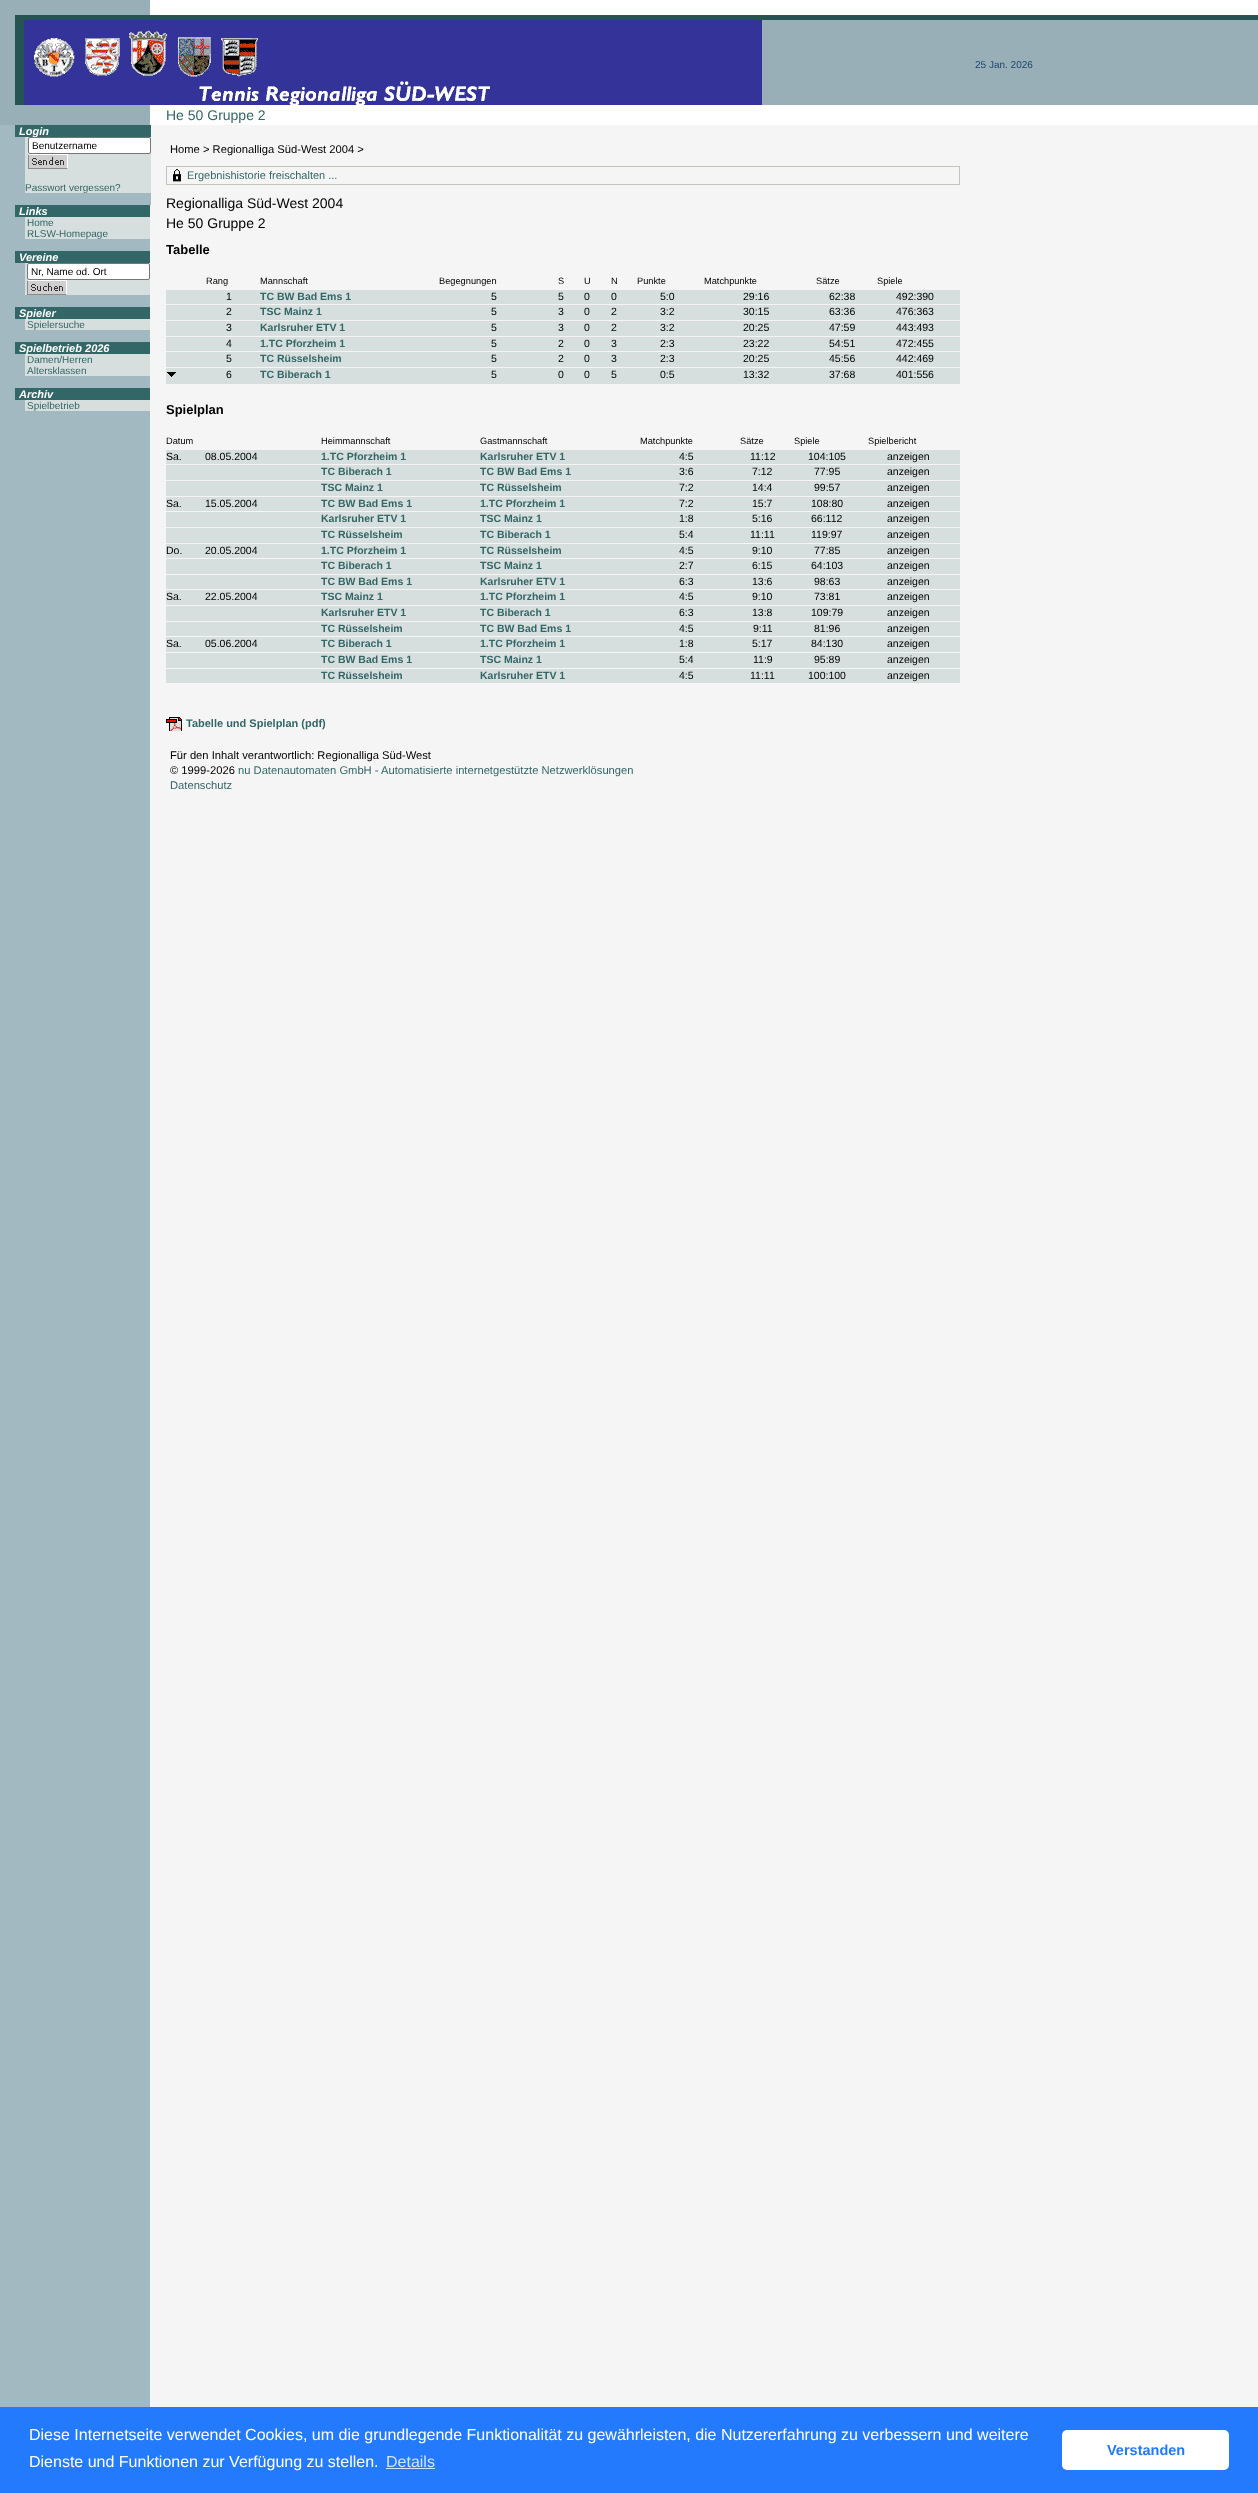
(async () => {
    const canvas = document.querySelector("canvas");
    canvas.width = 1258;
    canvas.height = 2493;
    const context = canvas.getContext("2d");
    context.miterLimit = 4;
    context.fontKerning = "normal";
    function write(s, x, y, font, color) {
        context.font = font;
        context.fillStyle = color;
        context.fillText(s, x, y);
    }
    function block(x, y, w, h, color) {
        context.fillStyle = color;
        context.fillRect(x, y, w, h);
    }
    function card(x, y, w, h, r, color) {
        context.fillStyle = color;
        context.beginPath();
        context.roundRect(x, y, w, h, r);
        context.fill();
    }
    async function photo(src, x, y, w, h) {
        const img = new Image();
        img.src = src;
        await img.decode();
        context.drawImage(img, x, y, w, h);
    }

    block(0, 0, 1258, 2493, "rgb(255, 255, 255)");
    await photo("media/1.png", 0, 125, 1258, 2282);
    await photo("media/2.png", 0, 0, 1258, 125);
    write("25 Jan. 2026", 975, 68, "10px Liberation Sans", "rgb(29, 68, 111)");
    write("He 50 Gruppe 2", 166, 120, "14px Liberation Sans", "rgb(51, 102, 102)");
    block(15, 125, 136, 12, "rgb(51, 102, 102)");
    block(25, 137, 126, 56, "rgb(214, 222, 222)");
    write("Login", 19, 135, "italic bold 11px Liberation Sans", "rgb(255, 255, 255)");
    block(150, 193, 1, 12, "rgb(162, 185, 194)");
    context.fillStyle = "rgb(255, 255, 255)";
    context.beginPath();
    context.roundRect(28.5, 137.5, 122, 16, 1.5);
    context.fill();
    context.strokeStyle = "rgb(118, 118, 118)";
    context.stroke();
    write("Benutzername", 32, 149, "10px Liberation Sans", "rgb(0, 0, 0)");
    await photo("media/3.png", 28, 154, 40, 15);
    write("Passwort vergessen?", 25, 191, "10px Liberation Sans", "rgb(51, 102, 102)");
    block(15, 205, 135, 12, "rgb(51, 102, 102)");
    write("Links", 19, 215, "italic bold 11px Liberation Sans", "rgb(255, 255, 255)");
    block(25, 217, 125, 22, "rgb(214, 222, 222)");
    write("Home", 27, 226, "10px Liberation Sans", "rgb(51, 102, 102)");
    write("RLSW-Homepage", 27, 237, "10px Liberation Sans", "rgb(51, 102, 102)");
    block(15, 251, 135, 12, "rgb(51, 102, 102)");
    write("Vereine", 19, 261, "italic bold 11px Liberation Sans", "rgb(255, 255, 255)");
    block(25, 263, 125, 32, "rgb(214, 222, 222)");
    context.fillStyle = "rgb(255, 255, 255)";
    context.beginPath();
    context.roundRect(27.5, 263.5, 122, 16, 1.5);
    context.fill();
    context.stroke();
    write("Nr, Name od. Ort", 31, 275, "10px Liberation Sans", "rgb(0, 0, 0)");
    await photo("media/4.png", 27, 280, 40, 15);
    block(15, 307, 135, 12, "rgb(51, 102, 102)");
    block(25, 319, 125, 11, "rgb(214, 222, 222)");
    write("Spieler", 19, 317, "italic bold 11px Liberation Sans", "rgb(255, 255, 255)");
    write("Spielersuche", 27, 328, "10px Liberation Sans", "rgb(51, 102, 102)");
    block(15, 342, 135, 12, "rgb(51, 102, 102)");
    block(25, 354, 125, 22, "rgb(214, 222, 222)");
    write("Spielbetrieb 2026", 19, 352, "italic bold 11px Liberation Sans", "rgb(255, 255, 255)");
    write("Damen/Herren", 27, 363, "10px Liberation Sans", "rgb(51, 102, 102)");
    write("Altersklassen", 27, 374, "10px Liberation Sans", "rgb(51, 102, 102)");
    block(15, 388, 135, 12, "rgb(51, 102, 102)");
    write("Archiv", 19, 398, "italic bold 11px Liberation Sans", "rgb(255, 255, 255)");
    block(25, 400, 125, 11, "rgb(214, 222, 222)");
    write("Spielbetrieb", 27, 409, "10px Liberation Sans", "rgb(51, 102, 102)");
    context.strokeStyle = "rgb(197, 196, 185)";
    context.strokeRect(166.5, 166.5, 793, 18);
    await photo("media/5.png", 173, 169, 8, 13);
    write("Ergebnishistorie freischalten ...", 187, 179, "11px Liberation Sans", "rgb(51, 102, 102)");
    write("Regionalliga Süd-West 2004", 166, 208, "14px Liberation Sans", "rgb(0, 0, 0)");
    write("He 50 Gruppe 2", 166, 228, "14px Liberation Sans", "rgb(0, 0, 0)");
    write("Tabelle", 166, 254, "bold 13px Liberation Sans", "rgb(0, 0, 0)");
    write("Rang", 206, 284, "9.25px Liberation Sans", "rgb(0, 0, 0)");
    write("Mannschaft", 260, 284, "9.25px Liberation Sans", "rgb(0, 0, 0)");
    write("Begegnungen", 439, 284, "9.25px Liberation Sans", "rgb(0, 0, 0)");
    write("S", 558, 284, "9.25px Liberation Sans", "rgb(0, 0, 0)");
    write("U", 584, 284, "9.25px Liberation Sans", "rgb(0, 0, 0)");
    write("N", 611, 284, "9.25px Liberation Sans", "rgb(0, 0, 0)");
    write("Punkte", 637, 284, "9.25px Liberation Sans", "rgb(0, 0, 0)");
    write("Matchpunkte", 704, 284, "9.25px Liberation Sans", "rgb(0, 0, 0)");
    write("Sätze", 816, 284, "9.25px Liberation Sans", "rgb(0, 0, 0)");
    write("Spiele", 877, 284, "9.25px Liberation Sans", "rgb(0, 0, 0)");
    block(166, 290, 794, 14, "rgb(214, 222, 222)");
    write("1", 226, 300, "10.5px Liberation Sans", "rgb(0, 0, 0)");
    write("TC BW Bad Ems 1", 260, 300, "bold 10.5px Liberation Sans", "rgb(51, 102, 102)");
    write("5", 491, 300, "10.5px Liberation Sans", "rgb(0, 0, 0)");
    write("5", 558, 300, "10.5px Liberation Sans", "rgb(0, 0, 0)");
    write("0", 584, 300, "10.5px Liberation Sans", "rgb(0, 0, 0)");
    write("0", 611, 300, "10.5px Liberation Sans", "rgb(0, 0, 0)");
    write("5:0", 660, 300, "10.5px Liberation Sans", "rgb(0, 0, 0)");
    write("29:16", 743, 300, "10.5px Liberation Sans", "rgb(0, 0, 0)");
    write("62:38", 829, 300, "10.5px Liberation Sans", "rgb(0, 0, 0)");
    write("492:390", 896, 300, "10.5px Liberation Sans", "rgb(0, 0, 0)");
    block(166, 305, 794, 15, "rgb(214, 222, 222)");
    write("2", 226, 315, "10.5px Liberation Sans", "rgb(0, 0, 0)");
    write("TSC Mainz 1", 260, 315, "bold 10.5px Liberation Sans", "rgb(51, 102, 102)");
    write("5", 491, 315, "10.5px Liberation Sans", "rgb(0, 0, 0)");
    write("3", 558, 315, "10.5px Liberation Sans", "rgb(0, 0, 0)");
    write("0", 584, 315, "10.5px Liberation Sans", "rgb(0, 0, 0)");
    write("2", 611, 315, "10.5px Liberation Sans", "rgb(0, 0, 0)");
    write("3:2", 660, 315, "10.5px Liberation Sans", "rgb(0, 0, 0)");
    write("30:15", 743, 315, "10.5px Liberation Sans", "rgb(0, 0, 0)");
    write("63:36", 829, 315, "10.5px Liberation Sans", "rgb(0, 0, 0)");
    write("476:363", 896, 315, "10.5px Liberation Sans", "rgb(0, 0, 0)");
    block(166, 321, 794, 15, "rgb(214, 222, 222)");
    write("3", 226, 331, "10.5px Liberation Sans", "rgb(0, 0, 0)");
    write("Karlsruher ETV 1", 260, 331, "bold 10.5px Liberation Sans", "rgb(51, 102, 102)");
    write("5", 491, 331, "10.5px Liberation Sans", "rgb(0, 0, 0)");
    write("3", 558, 331, "10.5px Liberation Sans", "rgb(0, 0, 0)");
    write("0", 584, 331, "10.5px Liberation Sans", "rgb(0, 0, 0)");
    write("2", 611, 331, "10.5px Liberation Sans", "rgb(0, 0, 0)");
    write("3:2", 660, 331, "10.5px Liberation Sans", "rgb(0, 0, 0)");
    write("20:25", 743, 331, "10.5px Liberation Sans", "rgb(0, 0, 0)");
    write("47:59", 829, 331, "10.5px Liberation Sans", "rgb(0, 0, 0)");
    write("443:493", 896, 331, "10.5px Liberation Sans", "rgb(0, 0, 0)");
    block(166, 337, 794, 14, "rgb(214, 222, 222)");
    write("4", 226, 347, "10.5px Liberation Sans", "rgb(0, 0, 0)");
    write("1.TC Pforzheim 1", 260, 347, "bold 10.5px Liberation Sans", "rgb(51, 102, 102)");
    write("5", 491, 347, "10.5px Liberation Sans", "rgb(0, 0, 0)");
    write("2", 558, 347, "10.5px Liberation Sans", "rgb(0, 0, 0)");
    write("0", 584, 347, "10.5px Liberation Sans", "rgb(0, 0, 0)");
    write("3", 611, 347, "10.5px Liberation Sans", "rgb(0, 0, 0)");
    write("2:3", 660, 347, "10.5px Liberation Sans", "rgb(0, 0, 0)");
    write("23:22", 743, 347, "10.5px Liberation Sans", "rgb(0, 0, 0)");
    write("54:51", 829, 347, "10.5px Liberation Sans", "rgb(0, 0, 0)");
    write("472:455", 896, 347, "10.5px Liberation Sans", "rgb(0, 0, 0)");
    block(166, 352, 794, 15, "rgb(214, 222, 222)");
    write("5", 226, 362, "10.5px Liberation Sans", "rgb(0, 0, 0)");
    write("TC Rüsselsheim", 260, 362, "bold 10.5px Liberation Sans", "rgb(51, 102, 102)");
    write("5", 491, 362, "10.5px Liberation Sans", "rgb(0, 0, 0)");
    write("2", 558, 362, "10.5px Liberation Sans", "rgb(0, 0, 0)");
    write("0", 584, 362, "10.5px Liberation Sans", "rgb(0, 0, 0)");
    write("3", 611, 362, "10.5px Liberation Sans", "rgb(0, 0, 0)");
    write("2:3", 660, 362, "10.5px Liberation Sans", "rgb(0, 0, 0)");
    write("20:25", 743, 362, "10.5px Liberation Sans", "rgb(0, 0, 0)");
    write("45:56", 829, 362, "10.5px Liberation Sans", "rgb(0, 0, 0)");
    write("442:469", 896, 362, "10.5px Liberation Sans", "rgb(0, 0, 0)");
    block(166, 368, 794, 16, "rgb(214, 222, 222)");
    await photo("media/6.png", 167, 372, 9, 5);
    write("6", 226, 378, "10.5px Liberation Sans", "rgb(0, 0, 0)");
    write("TC Biberach 1", 260, 378, "bold 10.5px Liberation Sans", "rgb(51, 102, 102)");
    write("5", 491, 378, "10.5px Liberation Sans", "rgb(0, 0, 0)");
    write("0", 558, 378, "10.5px Liberation Sans", "rgb(0, 0, 0)");
    write("0", 584, 378, "10.5px Liberation Sans", "rgb(0, 0, 0)");
    write("5", 611, 378, "10.5px Liberation Sans", "rgb(0, 0, 0)");
    write("0:5", 660, 378, "10.5px Liberation Sans", "rgb(0, 0, 0)");
    write("13:32", 743, 378, "10.5px Liberation Sans", "rgb(0, 0, 0)");
    write("37:68", 829, 378, "10.5px Liberation Sans", "rgb(0, 0, 0)");
    write("401:556", 896, 378, "10.5px Liberation Sans", "rgb(0, 0, 0)");
    write("Spielplan", 166, 414, "bold 13px Liberation Sans", "rgb(0, 0, 0)");
    write("Datum", 166, 444, "9.25px Liberation Sans", "rgb(0, 0, 0)");
    write("Heimmannschaft", 321, 444, "9.25px Liberation Sans", "rgb(0, 0, 0)");
    write("Gastmannschaft", 480, 444, "9.25px Liberation Sans", "rgb(0, 0, 0)");
    write("Matchpunkte", 640, 444, "9.25px Liberation Sans", "rgb(0, 0, 0)");
    write("Sätze", 740, 444, "9.25px Liberation Sans", "rgb(0, 0, 0)");
    write("Spiele", 794, 444, "9.25px Liberation Sans", "rgb(0, 0, 0)");
    write("Spielbericht", 868, 444, "9.25px Liberation Sans", "rgb(0, 0, 0)");
    block(166, 450, 794, 14, "rgb(214, 222, 222)");
    write("Sa.", 166, 460, "10.5px Liberation Sans", "rgb(0, 0, 0)");
    write("08.05.2004", 205, 460, "10.5px Liberation Sans", "rgb(0, 0, 0)");
    write("1.TC Pforzheim 1", 321, 460, "bold 10.5px Liberation Sans", "rgb(51, 102, 102)");
    write("Karlsruher ETV 1", 480, 460, "bold 10.5px Liberation Sans", "rgb(51, 102, 102)");
    write("4:5", 679, 460, "10.5px Liberation Sans", "rgb(0, 0, 0)");
    write("11:12", 750, 460, "10.5px Liberation Sans", "rgb(0, 0, 0)");
    write("104:105", 808, 460, "10.5px Liberation Sans", "rgb(0, 0, 0)");
    write("anzeigen", 887, 460, "10.5px Liberation Sans", "rgb(0, 0, 0)");
    block(166, 465, 794, 15, "rgb(214, 222, 222)");
    write("TC Biberach 1", 321, 475, "bold 10.5px Liberation Sans", "rgb(51, 102, 102)");
    write("TC BW Bad Ems 1", 480, 475, "bold 10.5px Liberation Sans", "rgb(51, 102, 102)");
    write("3:6", 679, 475, "10.5px Liberation Sans", "rgb(0, 0, 0)");
    write("7:12", 752, 475, "10.5px Liberation Sans", "rgb(0, 0, 0)");
    write("77:95", 814, 475, "10.5px Liberation Sans", "rgb(0, 0, 0)");
    write("anzeigen", 887, 475, "10.5px Liberation Sans", "rgb(0, 0, 0)");
    block(166, 481, 794, 15, "rgb(214, 222, 222)");
    write("TSC Mainz 1", 321, 491, "bold 10.5px Liberation Sans", "rgb(51, 102, 102)");
    write("TC Rüsselsheim", 480, 491, "bold 10.5px Liberation Sans", "rgb(51, 102, 102)");
    write("7:2", 679, 491, "10.5px Liberation Sans", "rgb(0, 0, 0)");
    write("14:4", 752, 491, "10.5px Liberation Sans", "rgb(0, 0, 0)");
    write("99:57", 814, 491, "10.5px Liberation Sans", "rgb(0, 0, 0)");
    write("anzeigen", 887, 491, "10.5px Liberation Sans", "rgb(0, 0, 0)");
    block(166, 497, 794, 14, "rgb(214, 222, 222)");
    write("Sa.", 166, 507, "10.5px Liberation Sans", "rgb(0, 0, 0)");
    write("15.05.2004", 205, 507, "10.5px Liberation Sans", "rgb(0, 0, 0)");
    write("TC BW Bad Ems 1", 321, 507, "bold 10.5px Liberation Sans", "rgb(51, 102, 102)");
    write("1.TC Pforzheim 1", 480, 507, "bold 10.5px Liberation Sans", "rgb(51, 102, 102)");
    write("7:2", 679, 507, "10.5px Liberation Sans", "rgb(0, 0, 0)");
    write("15:7", 752, 507, "10.5px Liberation Sans", "rgb(0, 0, 0)");
    write("108:80", 811, 507, "10.5px Liberation Sans", "rgb(0, 0, 0)");
    write("anzeigen", 887, 507, "10.5px Liberation Sans", "rgb(0, 0, 0)");
    block(166, 512, 794, 15, "rgb(214, 222, 222)");
    write("Karlsruher ETV 1", 321, 522, "bold 10.5px Liberation Sans", "rgb(51, 102, 102)");
    write("TSC Mainz 1", 480, 522, "bold 10.5px Liberation Sans", "rgb(51, 102, 102)");
    write("1:8", 679, 522, "10.5px Liberation Sans", "rgb(0, 0, 0)");
    write("5:16", 752, 522, "10.5px Liberation Sans", "rgb(0, 0, 0)");
    write("66:112", 811, 522, "10.5px Liberation Sans", "rgb(0, 0, 0)");
    write("anzeigen", 887, 522, "10.5px Liberation Sans", "rgb(0, 0, 0)");
    block(166, 528, 794, 15, "rgb(214, 222, 222)");
    write("TC Rüsselsheim", 321, 538, "bold 10.5px Liberation Sans", "rgb(51, 102, 102)");
    write("TC Biberach 1", 480, 538, "bold 10.5px Liberation Sans", "rgb(51, 102, 102)");
    write("5:4", 679, 538, "10.5px Liberation Sans", "rgb(0, 0, 0)");
    write("11:11", 750, 538, "10.5px Liberation Sans", "rgb(0, 0, 0)");
    write("119:97", 811, 538, "10.5px Liberation Sans", "rgb(0, 0, 0)");
    write("anzeigen", 887, 538, "10.5px Liberation Sans", "rgb(0, 0, 0)");
    block(166, 544, 794, 14, "rgb(214, 222, 222)");
    write("Do.", 166, 554, "10.5px Liberation Sans", "rgb(0, 0, 0)");
    write("20.05.2004", 205, 554, "10.5px Liberation Sans", "rgb(0, 0, 0)");
    write("1.TC Pforzheim 1", 321, 554, "bold 10.5px Liberation Sans", "rgb(51, 102, 102)");
    write("TC Rüsselsheim", 480, 554, "bold 10.5px Liberation Sans", "rgb(51, 102, 102)");
    write("4:5", 679, 554, "10.5px Liberation Sans", "rgb(0, 0, 0)");
    write("9:10", 752, 554, "10.5px Liberation Sans", "rgb(0, 0, 0)");
    write("77:85", 814, 554, "10.5px Liberation Sans", "rgb(0, 0, 0)");
    write("anzeigen", 887, 554, "10.5px Liberation Sans", "rgb(0, 0, 0)");
    block(166, 559, 794, 15, "rgb(214, 222, 222)");
    write("TC Biberach 1", 321, 569, "bold 10.5px Liberation Sans", "rgb(51, 102, 102)");
    write("TSC Mainz 1", 480, 569, "bold 10.5px Liberation Sans", "rgb(51, 102, 102)");
    write("2:7", 679, 569, "10.5px Liberation Sans", "rgb(0, 0, 0)");
    write("6:15", 752, 569, "10.5px Liberation Sans", "rgb(0, 0, 0)");
    write("64:103", 811, 569, "10.5px Liberation Sans", "rgb(0, 0, 0)");
    write("anzeigen", 887, 569, "10.5px Liberation Sans", "rgb(0, 0, 0)");
    block(166, 575, 794, 14, "rgb(214, 222, 222)");
    write("TC BW Bad Ems 1", 321, 585, "bold 10.5px Liberation Sans", "rgb(51, 102, 102)");
    write("Karlsruher ETV 1", 480, 585, "bold 10.5px Liberation Sans", "rgb(51, 102, 102)");
    write("6:3", 679, 585, "10.5px Liberation Sans", "rgb(0, 0, 0)");
    write("13:6", 752, 585, "10.5px Liberation Sans", "rgb(0, 0, 0)");
    write("98:63", 814, 585, "10.5px Liberation Sans", "rgb(0, 0, 0)");
    write("anzeigen", 887, 585, "10.5px Liberation Sans", "rgb(0, 0, 0)");
    block(166, 590, 794, 15, "rgb(214, 222, 222)");
    write("Sa.", 166, 600, "10.5px Liberation Sans", "rgb(0, 0, 0)");
    write("22.05.2004", 205, 600, "10.5px Liberation Sans", "rgb(0, 0, 0)");
    write("TSC Mainz 1", 321, 600, "bold 10.5px Liberation Sans", "rgb(51, 102, 102)");
    write("1.TC Pforzheim 1", 480, 600, "bold 10.5px Liberation Sans", "rgb(51, 102, 102)");
    write("4:5", 679, 600, "10.5px Liberation Sans", "rgb(0, 0, 0)");
    write("9:10", 752, 600, "10.5px Liberation Sans", "rgb(0, 0, 0)");
    write("73:81", 814, 600, "10.5px Liberation Sans", "rgb(0, 0, 0)");
    write("anzeigen", 887, 600, "10.5px Liberation Sans", "rgb(0, 0, 0)");
    block(166, 606, 794, 15, "rgb(214, 222, 222)");
    write("Karlsruher ETV 1", 321, 616, "bold 10.5px Liberation Sans", "rgb(51, 102, 102)");
    write("TC Biberach 1", 480, 616, "bold 10.5px Liberation Sans", "rgb(51, 102, 102)");
    write("6:3", 679, 616, "10.5px Liberation Sans", "rgb(0, 0, 0)");
    write("13:8", 752, 616, "10.5px Liberation Sans", "rgb(0, 0, 0)");
    write("109:79", 811, 616, "10.5px Liberation Sans", "rgb(0, 0, 0)");
    write("anzeigen", 887, 616, "10.5px Liberation Sans", "rgb(0, 0, 0)");
    block(166, 622, 794, 14, "rgb(214, 222, 222)");
    write("TC Rüsselsheim", 321, 632, "bold 10.5px Liberation Sans", "rgb(51, 102, 102)");
    write("TC BW Bad Ems 1", 480, 632, "bold 10.5px Liberation Sans", "rgb(51, 102, 102)");
    write("4:5", 679, 632, "10.5px Liberation Sans", "rgb(0, 0, 0)");
    write("9:11", 753, 632, "10.5px Liberation Sans", "rgb(0, 0, 0)");
    write("81:96", 814, 632, "10.5px Liberation Sans", "rgb(0, 0, 0)");
    write("anzeigen", 887, 632, "10.5px Liberation Sans", "rgb(0, 0, 0)");
    block(166, 637, 794, 15, "rgb(214, 222, 222)");
    write("Sa.", 166, 647, "10.5px Liberation Sans", "rgb(0, 0, 0)");
    write("05.06.2004", 205, 647, "10.5px Liberation Sans", "rgb(0, 0, 0)");
    write("TC Biberach 1", 321, 647, "bold 10.5px Liberation Sans", "rgb(51, 102, 102)");
    write("1.TC Pforzheim 1", 480, 647, "bold 10.5px Liberation Sans", "rgb(51, 102, 102)");
    write("1:8", 679, 647, "10.5px Liberation Sans", "rgb(0, 0, 0)");
    write("5:17", 752, 647, "10.5px Liberation Sans", "rgb(0, 0, 0)");
    write("84:130", 811, 647, "10.5px Liberation Sans", "rgb(0, 0, 0)");
    write("anzeigen", 887, 647, "10.5px Liberation Sans", "rgb(0, 0, 0)");
    block(166, 653, 794, 15, "rgb(214, 222, 222)");
    write("TC BW Bad Ems 1", 321, 663, "bold 10.5px Liberation Sans", "rgb(51, 102, 102)");
    write("TSC Mainz 1", 480, 663, "bold 10.5px Liberation Sans", "rgb(51, 102, 102)");
    write("5:4", 679, 663, "10.5px Liberation Sans", "rgb(0, 0, 0)");
    write("11:9", 753, 663, "10.5px Liberation Sans", "rgb(0, 0, 0)");
    write("95:89", 814, 663, "10.5px Liberation Sans", "rgb(0, 0, 0)");
    write("anzeigen", 887, 663, "10.5px Liberation Sans", "rgb(0, 0, 0)");
    block(166, 669, 794, 14, "rgb(214, 222, 222)");
    write("TC Rüsselsheim", 321, 679, "bold 10.5px Liberation Sans", "rgb(51, 102, 102)");
    write("Karlsruher ETV 1", 480, 679, "bold 10.5px Liberation Sans", "rgb(51, 102, 102)");
    write("4:5", 679, 679, "10.5px Liberation Sans", "rgb(0, 0, 0)");
    write("11:11", 750, 679, "10.5px Liberation Sans", "rgb(0, 0, 0)");
    write("100:100", 808, 679, "10.5px Liberation Sans", "rgb(0, 0, 0)");
    write("anzeigen", 887, 679, "10.5px Liberation Sans", "rgb(0, 0, 0)");
    await photo("media/7.png", 166, 717, 16, 14);
    write("Tabelle und Spielplan (pdf)", 186, 727, "bold 11px Liberation Sans", "rgb(51, 102, 102)");
    write("Home > Regionalliga Süd-West 2004 >", 170, 153, "11.2px Liberation Sans", "rgb(0, 0, 0)");
    write("Für den Inhalt verantwortlich: Regionalliga Süd-West", 170, 759, "11.2px Liberation Sans", "rgb(0, 0, 0)");
    write("© 1999-2026", 170, 774, "11.2px Liberation Sans", "rgb(0, 0, 0)");
    write("nu Datenautomaten GmbH - Automatisierte internetgestützte Netzwerklösungen", 238, 774, "11.2px Liberation Sans", "rgb(51, 102, 102)");
    write("Datenschutz", 170, 789, "11.2px Liberation Sans", "rgb(51, 102, 102)");
    block(0, 2407, 1258, 86, "rgb(35, 122, 252)");
    write("Diese Internetseite verwendet Cookies, um die grundlegende Funktionalität zu gewährleisten, die Nutzererfahrung zu verbessern und weitere", 29, 2440, "16px Liberation Sans", "rgb(255, 255, 255)");
    write("Dienste und Funktionen zur Verfügung zu stellen.", 29, 2467, "16px Liberation Sans", "rgb(255, 255, 255)");
    write("Details", 386, 2467, "16px Liberation Sans", "rgb(211, 228, 254)");
    block(386, 2468, 49, 1, "rgb(211, 228, 254)");
    card(1062, 2430, 167, 40, 5, "rgb(255, 255, 255)");
    write("Verstanden", 1107, 2455, "bold 14.5px Liberation Sans", "rgb(35, 122, 252)");
})();
